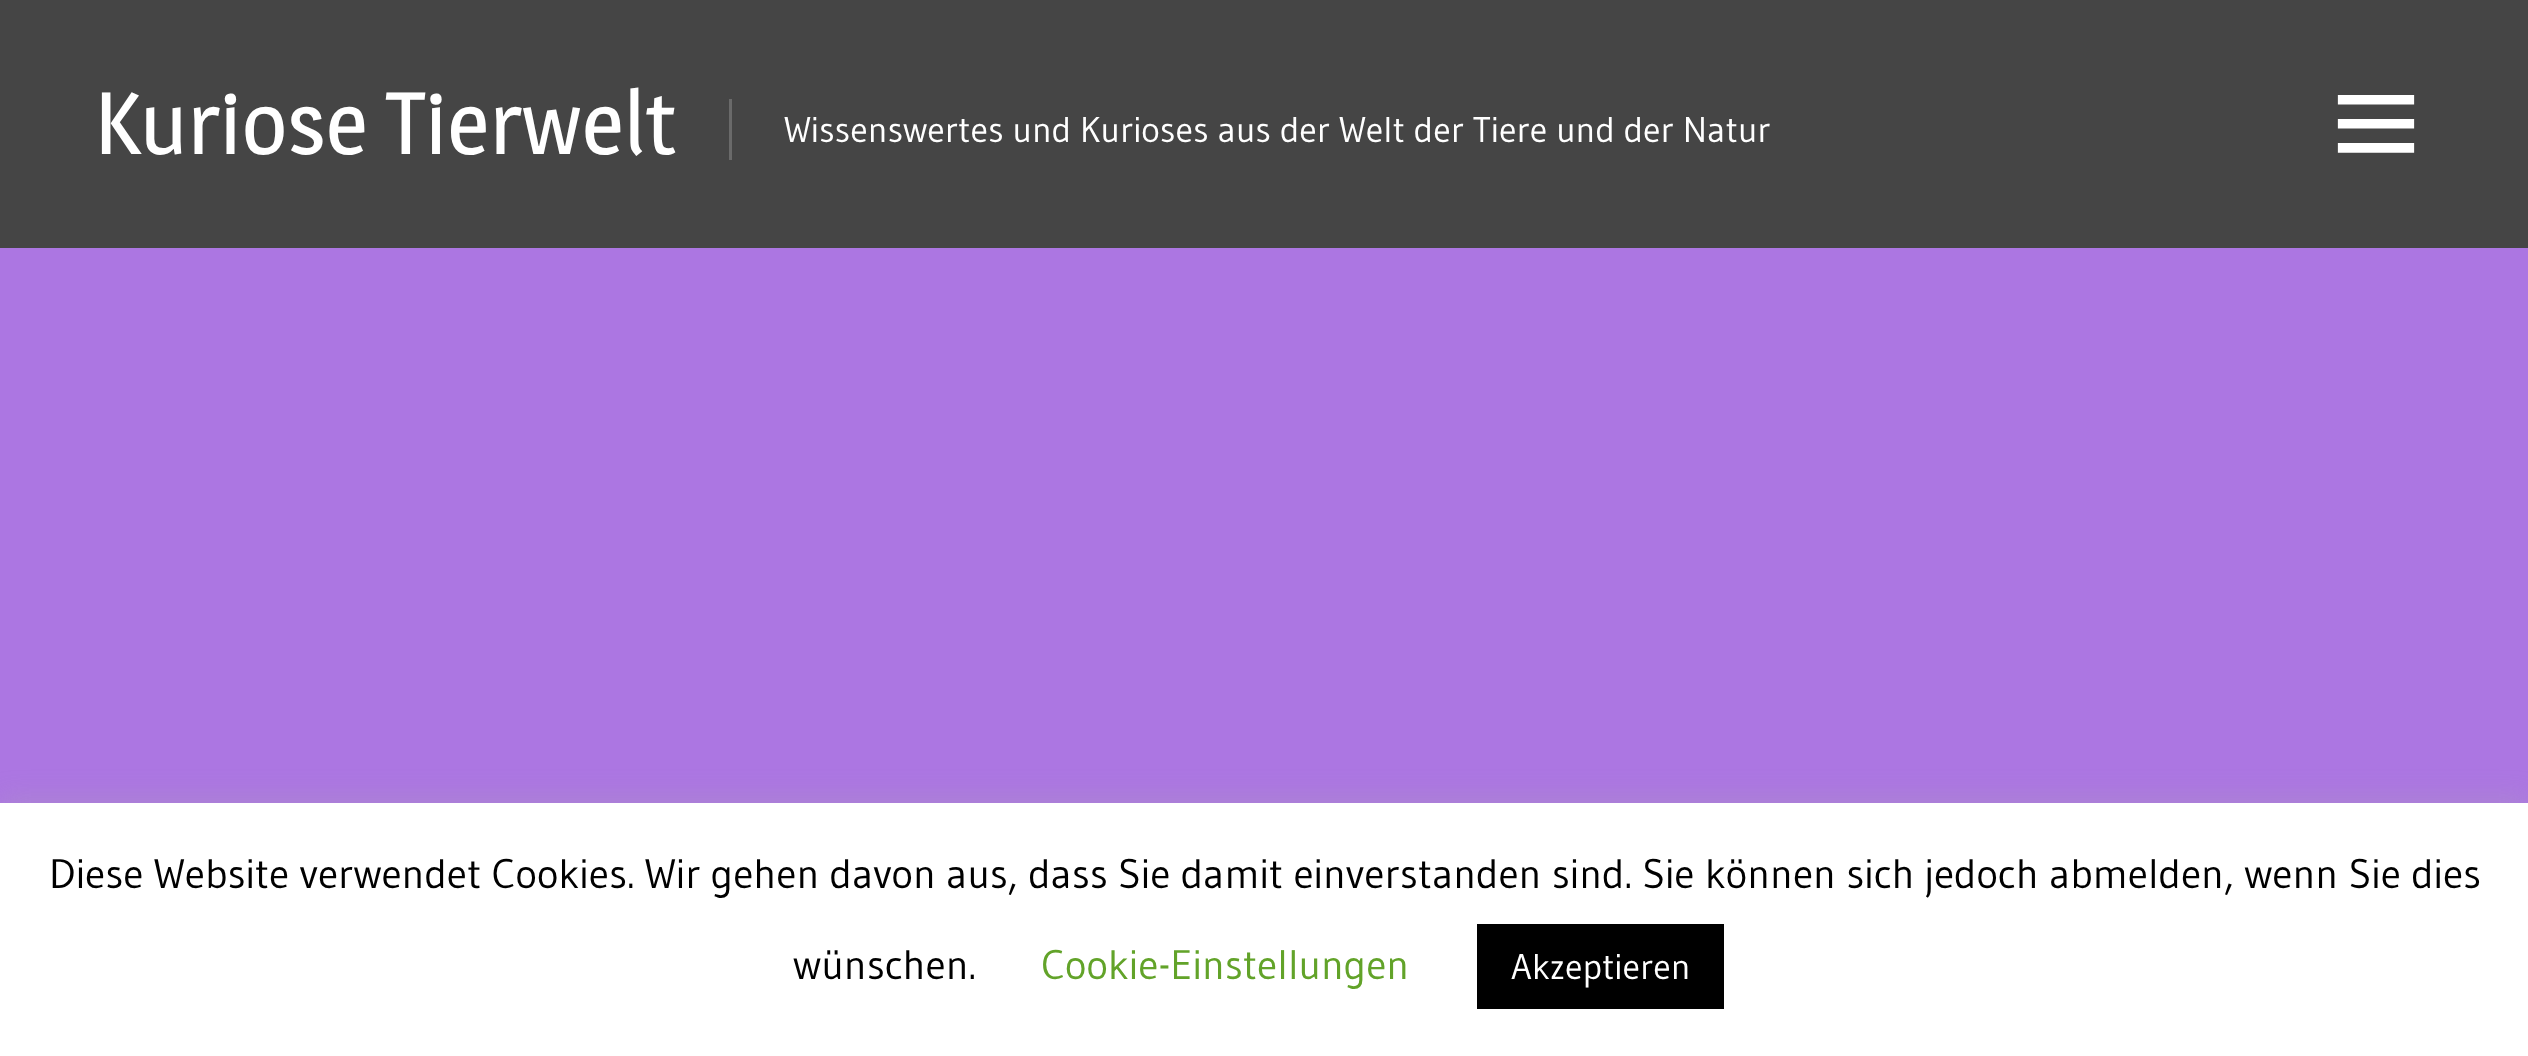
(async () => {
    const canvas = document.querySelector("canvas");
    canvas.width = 2528;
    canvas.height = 1056;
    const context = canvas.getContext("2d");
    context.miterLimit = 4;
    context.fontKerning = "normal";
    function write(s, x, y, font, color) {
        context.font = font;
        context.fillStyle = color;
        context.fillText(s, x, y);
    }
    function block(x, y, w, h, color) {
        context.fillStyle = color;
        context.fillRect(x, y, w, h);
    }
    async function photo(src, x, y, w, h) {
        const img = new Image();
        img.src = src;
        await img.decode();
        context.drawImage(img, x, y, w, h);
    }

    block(0, 0, 2528, 1056, "rgb(172, 118, 226)");
    block(0, 0, 2528, 248, "rgb(69, 69, 69)");
    write("Kuriose Tierwelt", 94, 154, "88px Magra", "rgb(255, 255, 255)");
    block(729, 99, 3, 61, "rgb(106, 106, 106)");
    write("Wissenswertes und Kurioses aus der Welt der Tiere und der Natur", 784, 142, "35.75px Gudea", "rgb(255, 255, 255)");
    await photo("media/1.png", 2337, 95, 78, 58);
    context.fillStyle = "rgba(172, 171, 171, 0.3)";
    context.filter = "blur(14px)";
    context.beginPath();
    context.rect(0, 800, 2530, 253);
    context.fill();
    context.filter = "none";
    block(0, 803, 2528, 253, "rgb(255, 255, 255)");
    write("Diese Website verwendet Cookies. Wir gehen davon aus, dass Sie damit einverstanden sind. Sie können sich jedoch abmelden, wenn Sie dies", 49, 888, "41.25px Gudea", "rgb(0, 0, 0)");
    write("wünschen.", 793, 979, "41.25px Gudea", "rgb(0, 0, 0)");
    write("Cookie-Einstellungen", 1041, 979, "41.25px Gudea", "rgb(98, 163, 41)");
    block(1477, 924, 247, 85, "rgb(0, 0, 0)");
    write("Akzeptieren", 1511, 979, "35.75px Gudea", "rgb(255, 255, 255)");
})();
